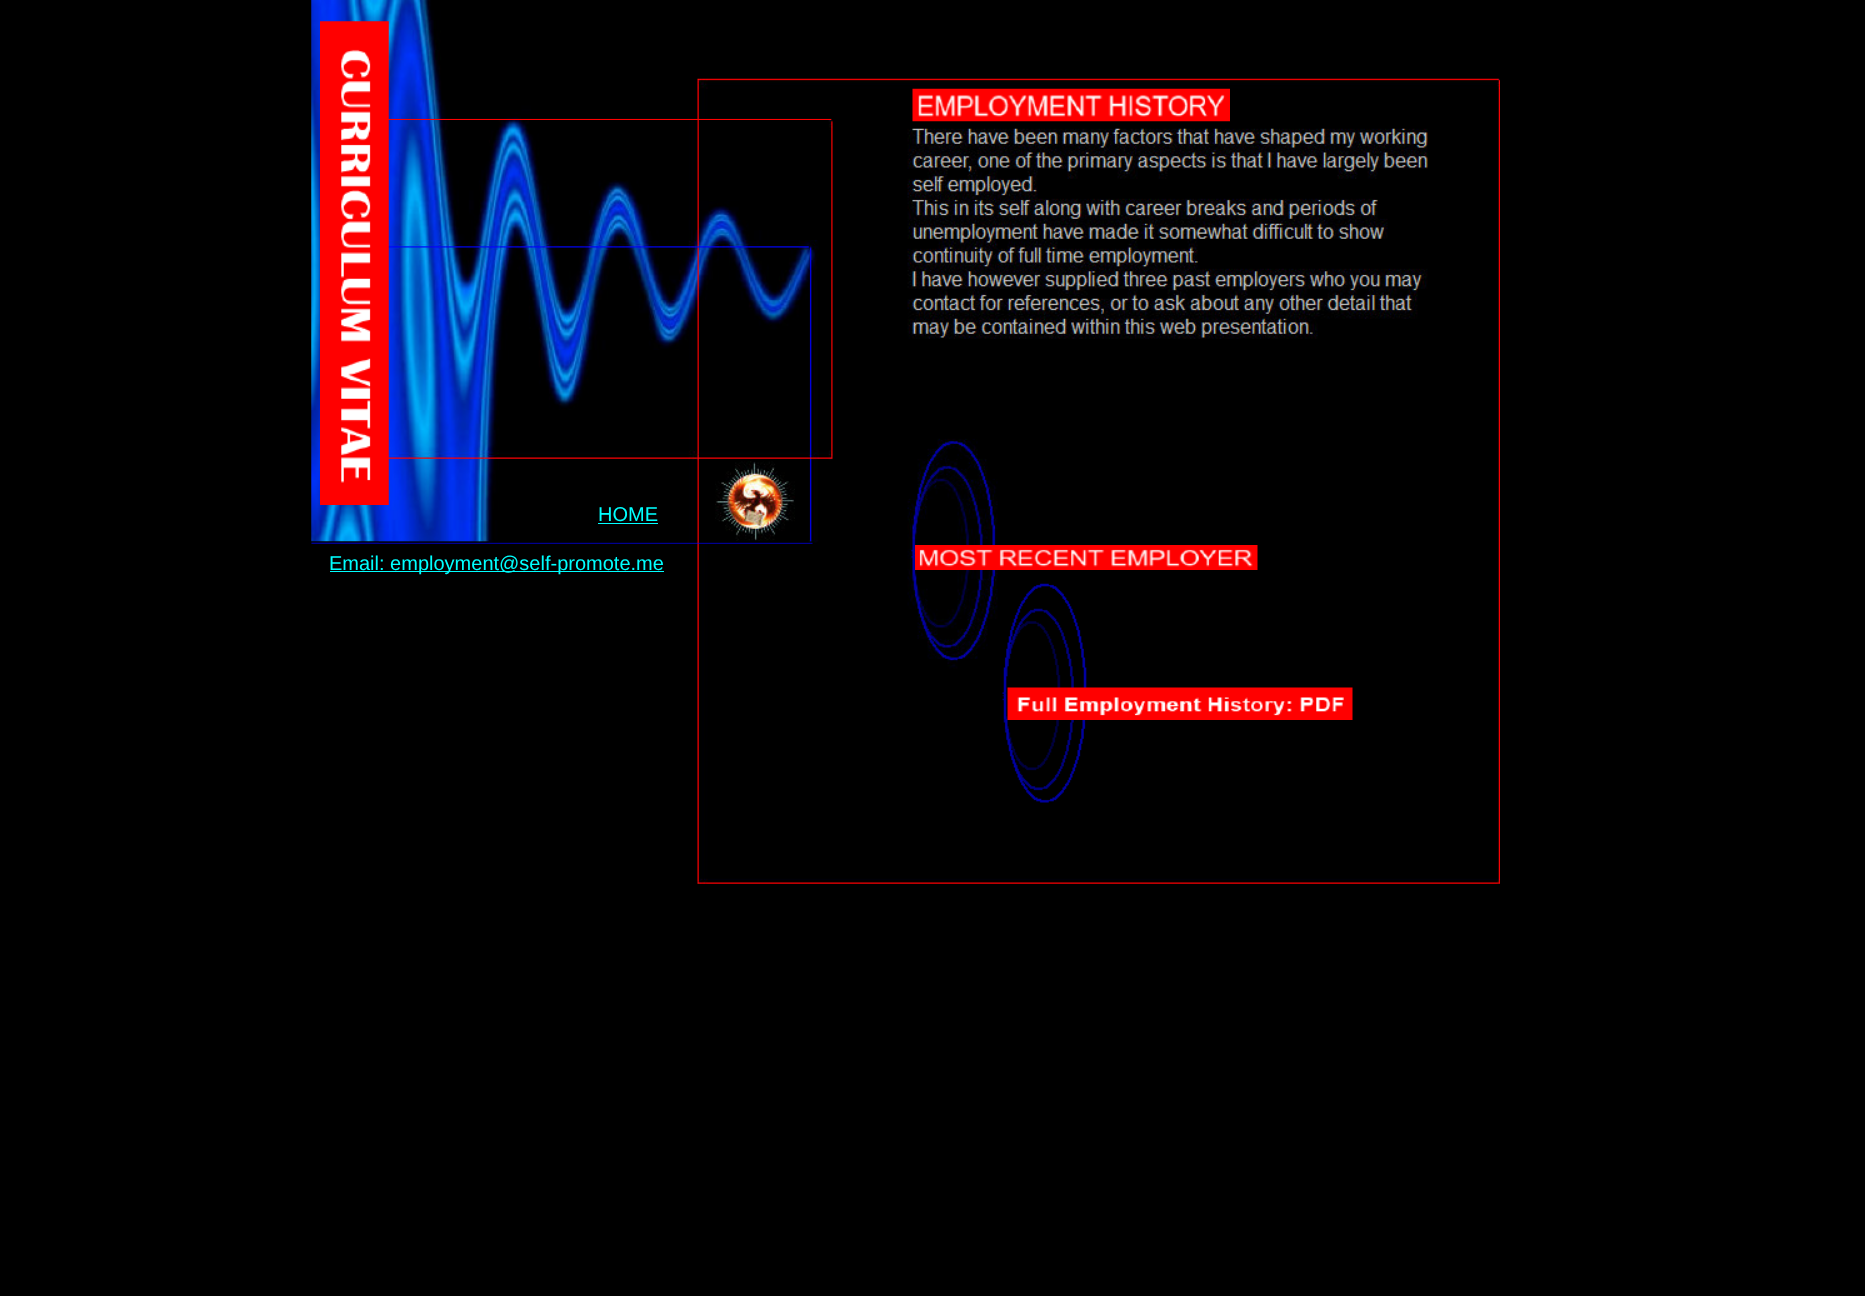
(async () => {
    const canvas = document.querySelector("canvas");
    canvas.width = 1865;
    canvas.height = 1296;
    const context = canvas.getContext("2d");
    context.miterLimit = 4;
    context.fontKerning = "normal";
    function write(s, x, y, font, color) {
        context.font = font;
        context.fillStyle = color;
        context.fillText(s, x, y);
    }
    function block(x, y, w, h, color) {
        context.fillStyle = color;
        context.fillRect(x, y, w, h);
    }
    async function photo(src, x, y, w, h) {
        const img = new Image();
        img.src = src;
        await img.decode();
        context.drawImage(img, x, y, w, h);
    }

    block(0, 0, 1865, 1296, "rgb(0, 0, 0)");
    await photo("media/1.png", 311, 0, 506, 542);
    await photo("media/3.png", 697, 78, 803, 806);
    await photo("media/4.png", 388, 118, 444, 2);
    await photo("media/8.png", 311, 542, 502, 2);
    await photo("media/6.png", 378, 120, 455, 423);
    await photo("media/2.png", 320, 21, 69, 484);
    await photo("media/5.png", 912, 88, 318, 34);
    write("HOME", 598, 521, "20px Liberation Sans", "rgb(0, 255, 255)");
    block(598, 523, 60, 1, "rgb(0, 255, 255)");
    await photo("media/7.png", 715, 461, 80, 80);
    block(330, 571, 334, 1, "rgb(0, 255, 255)");
    write("Email: employment@self-promote.me", 329, 570, "20px Liberation Sans", "rgb(0, 255, 255)");
    await photo("media/9.png", 915, 545, 343, 25);
    await photo("media/10.png", 1002, 583, 85, 220);
    await photo("media/11.png", 1007, 687, 346, 33);
})();
